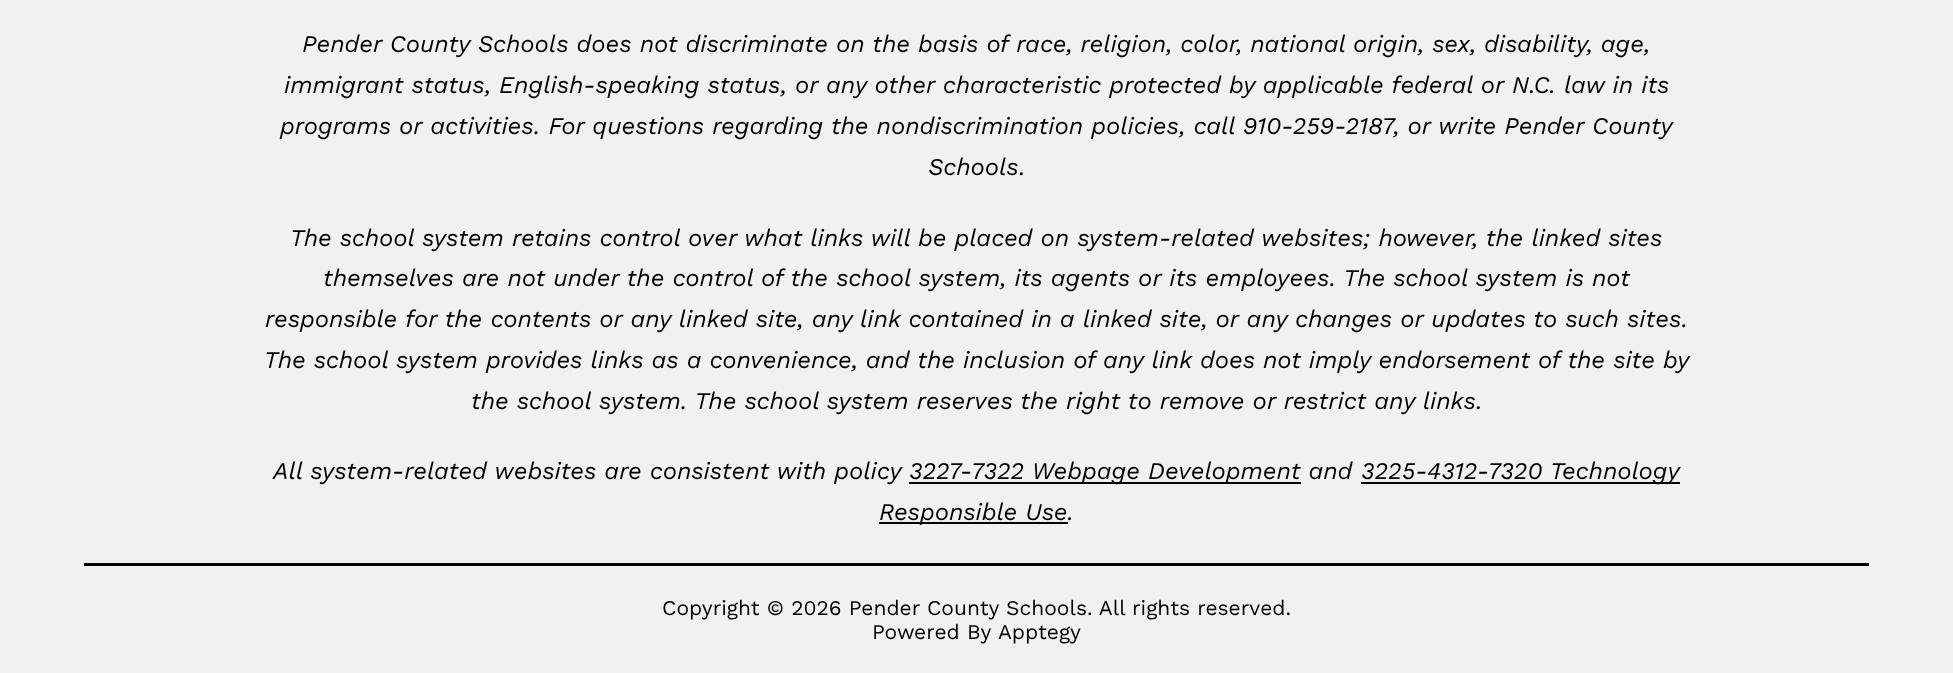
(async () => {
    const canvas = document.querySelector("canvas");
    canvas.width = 1953;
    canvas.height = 673;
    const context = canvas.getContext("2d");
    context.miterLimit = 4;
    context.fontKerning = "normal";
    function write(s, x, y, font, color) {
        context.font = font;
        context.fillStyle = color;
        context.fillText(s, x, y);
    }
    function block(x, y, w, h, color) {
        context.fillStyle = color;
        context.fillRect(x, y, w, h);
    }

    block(0, 0, 1953, 673, "rgb(241, 241, 241)");
    write("Pender County Schools does not discriminate on the basis of race, religion, color, national origin, sex, disability, age,", 302, 52, "italic 24px Work Sans", "rgb(0, 0, 0)");
    write("immigrant status, English-speaking status, or any other characteristic protected by applicable federal or N.C. law in its", 284, 93, "italic 24px Work Sans", "rgb(0, 0, 0)");
    write("programs or activities. For questions regarding the nondiscrimination policies, call 910-259-2187, or write Pender County", 280, 134, "italic 24px Work Sans", "rgb(0, 0, 0)");
    write("Schools.", 928, 175, "italic 24px Work Sans", "rgb(0, 0, 0)");
    write("The school system retains control over what links will be placed on system-related websites; however, the linked sites", 290, 246, "italic 24px Work Sans", "rgb(0, 0, 0)");
    write("themselves are not under the control of the school system, its agents or its employees. The school system is not", 323, 286, "italic 24px Work Sans", "rgb(0, 0, 0)");
    write("responsible for the contents or any linked site, any link contained in a linked site, or any changes or updates to such sites.", 265, 327, "italic 24px Work Sans", "rgb(0, 0, 0)");
    write("The school system provides links as a convenience, and the inclusion of any link does not imply endorsement of the site by", 264, 368, "italic 24px Work Sans", "rgb(0, 0, 0)");
    write("the school system. The school system reserves the right to remove or restrict any links.", 471, 409, "italic 24px Work Sans", "rgb(0, 0, 0)");
    write("All system-related websites are consistent with policy", 273, 479, "italic 24px Work Sans", "rgb(0, 0, 0)");
    block(909, 482, 392, 2, "rgb(0, 0, 0)");
    write("3227-7322 Webpage Development and", 909, 479, "italic 24px Work Sans", "rgb(0, 0, 0)");
    block(1361, 482, 319, 2, "rgb(0, 0, 0)");
    write("3225-4312-7320 Technology", 1361, 479, "italic 24px Work Sans", "rgb(0, 0, 0)");
    block(879, 522, 189, 2, "rgb(0, 0, 0)");
    write("Responsible Use.", 879, 520, "italic 24px Work Sans", "rgb(0, 0, 0)");
    block(84, 563, 1785, 3, "rgb(0, 0, 0)");
    write("Copyright © 2026 Pender County Schools. All rights reserved.", 662, 615, "21px Work Sans", "rgb(0, 0, 0)");
    write("Powered By", 872, 639, "21px Work Sans", "rgb(0, 0, 0)");
    write("Apptegy", 998, 639, "21px Work Sans", "rgb(0, 0, 0)");
})();
